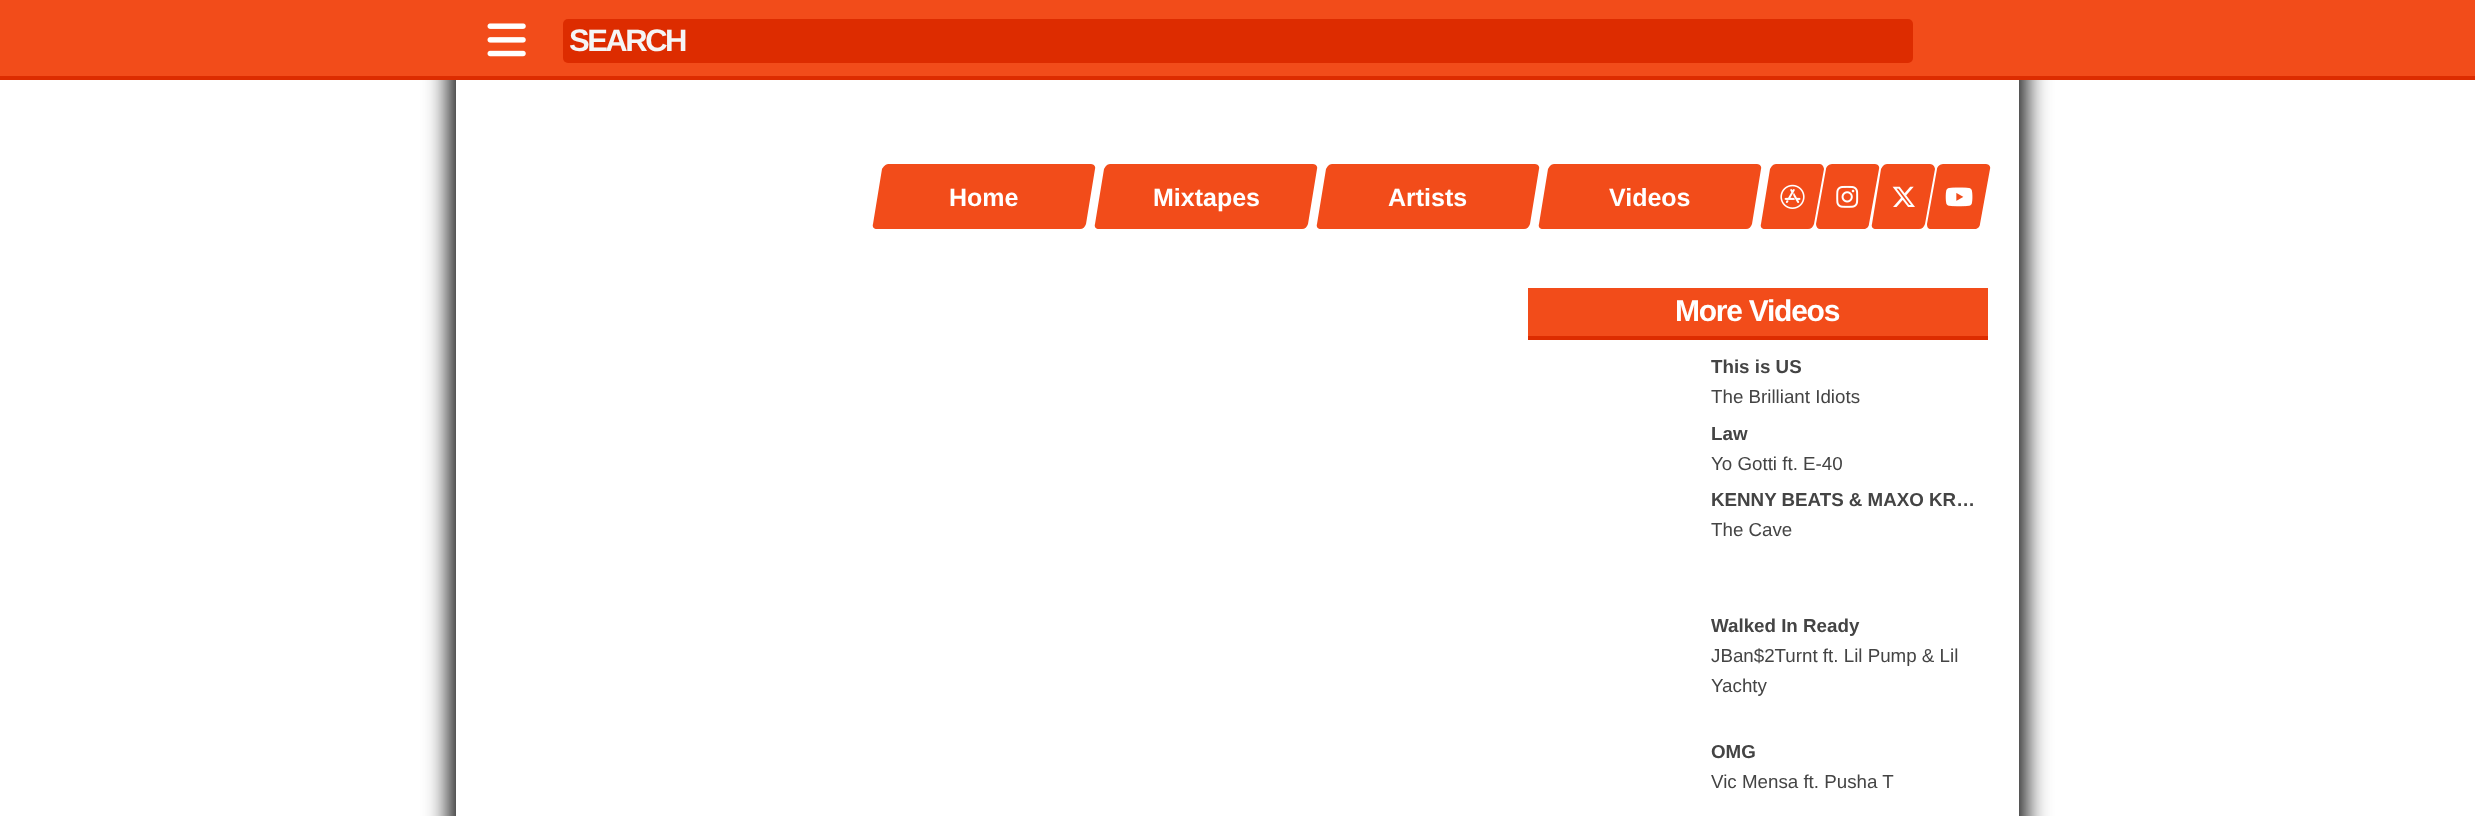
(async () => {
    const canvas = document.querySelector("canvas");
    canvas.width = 2475;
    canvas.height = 816;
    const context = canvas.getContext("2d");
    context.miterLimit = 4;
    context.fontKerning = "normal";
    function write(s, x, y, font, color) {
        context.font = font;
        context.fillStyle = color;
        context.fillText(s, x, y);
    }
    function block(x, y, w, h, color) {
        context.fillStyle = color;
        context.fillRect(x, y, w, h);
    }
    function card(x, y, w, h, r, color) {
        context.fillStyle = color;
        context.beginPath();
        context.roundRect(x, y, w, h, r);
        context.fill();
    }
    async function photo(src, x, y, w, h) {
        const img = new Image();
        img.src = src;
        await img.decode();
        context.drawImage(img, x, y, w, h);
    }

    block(0, 0, 2475, 816, "rgb(255, 255, 255)");
    context.fillStyle = "rgb(16, 16, 16)";
    context.filter = "blur(12.5px)";
    context.beginPath();
    context.rect(449, -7, 1577, 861);
    context.fill();
    context.filter = "none";
    block(0, 0, 2475, 76, "rgb(242, 76, 26)");
    block(0, 76, 2475, 4, "rgb(221, 44, 0)");
    await photo("media/1.png", 487, 23, 39, 34);
    card(563, 19, 1350, 44, 5, "rgb(221, 44, 0)");
    context.letterSpacing = "-2.5px";
    write("SEARCH", 569, 51, "bold 31px Liberation Sans", "rgb(245, 245, 245)");
    block(456, 80, 1563, 736, "rgb(255, 255, 255)");
    context.fillStyle = "rgb(242, 76, 26)";
    context.beginPath();
    context.moveTo(888, 164);
    context.lineTo(1091, 164);
    context.bezierCurveTo(1094, 164, 1096, 167, 1095, 169);
    context.lineTo(1086, 224);
    context.bezierCurveTo(1085, 227, 1083, 229, 1080, 229);
    context.lineTo(877, 229);
    context.bezierCurveTo(874, 229, 872, 227, 873, 224);
    context.lineTo(882, 169);
    context.bezierCurveTo(883, 167, 886, 164, 888, 164);
    context.closePath();
    context.fill();
    context.letterSpacing = "0px";
    write("Home", 949, 206, "bold 25px Liberation Sans", "rgb(255, 255, 255)");
    context.fillStyle = "rgb(242, 76, 26)";
    context.beginPath();
    context.moveTo(1110, 164);
    context.lineTo(1313, 164);
    context.bezierCurveTo(1316, 164, 1318, 167, 1317, 169);
    context.lineTo(1308, 224);
    context.bezierCurveTo(1307, 227, 1305, 229, 1302, 229);
    context.lineTo(1099, 229);
    context.bezierCurveTo(1096, 229, 1094, 227, 1095, 224);
    context.lineTo(1104, 169);
    context.bezierCurveTo(1105, 167, 1107, 164, 1110, 164);
    context.closePath();
    context.fill();
    write("Mixtapes", 1153, 206, "bold 25px Liberation Sans", "rgb(255, 255, 255)");
    context.fillStyle = "rgb(242, 76, 26)";
    context.beginPath();
    context.moveTo(1332, 164);
    context.lineTo(1535, 164);
    context.bezierCurveTo(1538, 164, 1540, 167, 1539, 169);
    context.lineTo(1530, 224);
    context.bezierCurveTo(1529, 227, 1527, 229, 1524, 229);
    context.lineTo(1321, 229);
    context.bezierCurveTo(1318, 229, 1316, 227, 1317, 224);
    context.lineTo(1326, 169);
    context.bezierCurveTo(1327, 167, 1329, 164, 1332, 164);
    context.closePath();
    context.fill();
    write("Artists", 1388, 206, "bold 25px Liberation Sans", "rgb(255, 255, 255)");
    context.fillStyle = "rgb(242, 76, 26)";
    context.beginPath();
    context.moveTo(1554, 164);
    context.lineTo(1757, 164);
    context.bezierCurveTo(1760, 164, 1762, 167, 1761, 169);
    context.lineTo(1752, 224);
    context.bezierCurveTo(1751, 227, 1749, 229, 1746, 229);
    context.lineTo(1543, 229);
    context.bezierCurveTo(1540, 229, 1538, 227, 1539, 224);
    context.lineTo(1548, 169);
    context.bezierCurveTo(1549, 167, 1551, 164, 1554, 164);
    context.closePath();
    context.fill();
    write("Videos", 1609, 206, "bold 25px Liberation Sans", "rgb(255, 255, 255)");
    context.fillStyle = "rgb(242, 76, 26)";
    context.beginPath();
    context.moveTo(1776, 164);
    context.lineTo(1820, 164);
    context.bezierCurveTo(1822, 164, 1824, 167, 1824, 169);
    context.lineTo(1814, 224);
    context.bezierCurveTo(1813, 227, 1811, 229, 1808, 229);
    context.lineTo(1765, 229);
    context.bezierCurveTo(1762, 229, 1760, 227, 1761, 224);
    context.lineTo(1770, 169);
    context.bezierCurveTo(1771, 167, 1773, 164, 1776, 164);
    context.closePath();
    context.fill();
    await photo("media/2.png", 1780, 184, 25, 25);
    context.beginPath();
    context.moveTo(1832, 164);
    context.lineTo(1875, 164);
    context.bezierCurveTo(1878, 164, 1880, 167, 1879, 169);
    context.lineTo(1869, 224);
    context.bezierCurveTo(1869, 227, 1866, 229, 1864, 229);
    context.lineTo(1820, 229);
    context.bezierCurveTo(1818, 229, 1816, 227, 1816, 224);
    context.lineTo(1826, 169);
    context.bezierCurveTo(1826, 167, 1829, 164, 1832, 164);
    context.closePath();
    context.fill();
    await photo("media/3.png", 1836, 185, 23, 23);
    context.beginPath();
    context.moveTo(1887, 164);
    context.lineTo(1930, 164);
    context.bezierCurveTo(1933, 164, 1935, 167, 1935, 169);
    context.lineTo(1925, 224);
    context.bezierCurveTo(1924, 227, 1922, 229, 1919, 229);
    context.lineTo(1876, 229);
    context.bezierCurveTo(1873, 229, 1871, 227, 1872, 224);
    context.lineTo(1881, 169);
    context.bezierCurveTo(1882, 167, 1884, 164, 1887, 164);
    context.closePath();
    context.fill();
    await photo("media/4.png", 1892, 186, 23, 21);
    context.beginPath();
    context.moveTo(1943, 164);
    context.lineTo(1986, 164);
    context.bezierCurveTo(1989, 164, 1991, 167, 1990, 169);
    context.lineTo(1980, 224);
    context.bezierCurveTo(1980, 227, 1977, 229, 1975, 229);
    context.lineTo(1931, 229);
    context.bezierCurveTo(1928, 229, 1927, 227, 1927, 224);
    context.lineTo(1937, 169);
    context.bezierCurveTo(1937, 167, 1940, 164, 1943, 164);
    context.closePath();
    context.fill();
    await photo("media/5.png", 1945, 187, 28, 20);
    block(1528, 288, 460, 48, "rgb(242, 76, 26)");
    block(1528, 336, 460, 4, "rgb(221, 44, 0)");
    context.letterSpacing = "-1.25px";
    write("More Videos", 1675, 321, "bold 30px Liberation Sans", "rgb(255, 255, 255)");
    context.letterSpacing = "0px";
    write("This is US", 1711, 373, "bold 18.75px Liberation Sans", "rgb(68, 68, 68)");
    write("The Brilliant Idiots", 1711, 403, "18.75px Liberation Sans", "rgb(68, 68, 68)");
    write("Law", 1711, 440, "bold 18.75px Liberation Sans", "rgb(68, 68, 68)");
    write("Yo Gotti ft. E-40", 1711, 470, "18.75px Liberation Sans", "rgb(68, 68, 68)");
    write("KENNY BEATS & MAXO KR…", 1711, 506, "bold 18.75px Liberation Sans", "rgb(68, 68, 68)");
    write("The Cave", 1711, 536, "18.75px Liberation Sans", "rgb(68, 68, 68)");
    write("Walked In Ready", 1711, 632, "bold 18.75px Liberation Sans", "rgb(68, 68, 68)");
    write("JBan$2Turnt ft. Lil Pump & Lil", 1711, 662, "18.75px Liberation Sans", "rgb(68, 68, 68)");
    write("Yachty", 1711, 692, "18.75px Liberation Sans", "rgb(68, 68, 68)");
    write("OMG", 1711, 758, "bold 18.75px Liberation Sans", "rgb(68, 68, 68)");
    write("Vic Mensa ft. Pusha T", 1711, 788, "18.75px Liberation Sans", "rgb(68, 68, 68)");
})();
